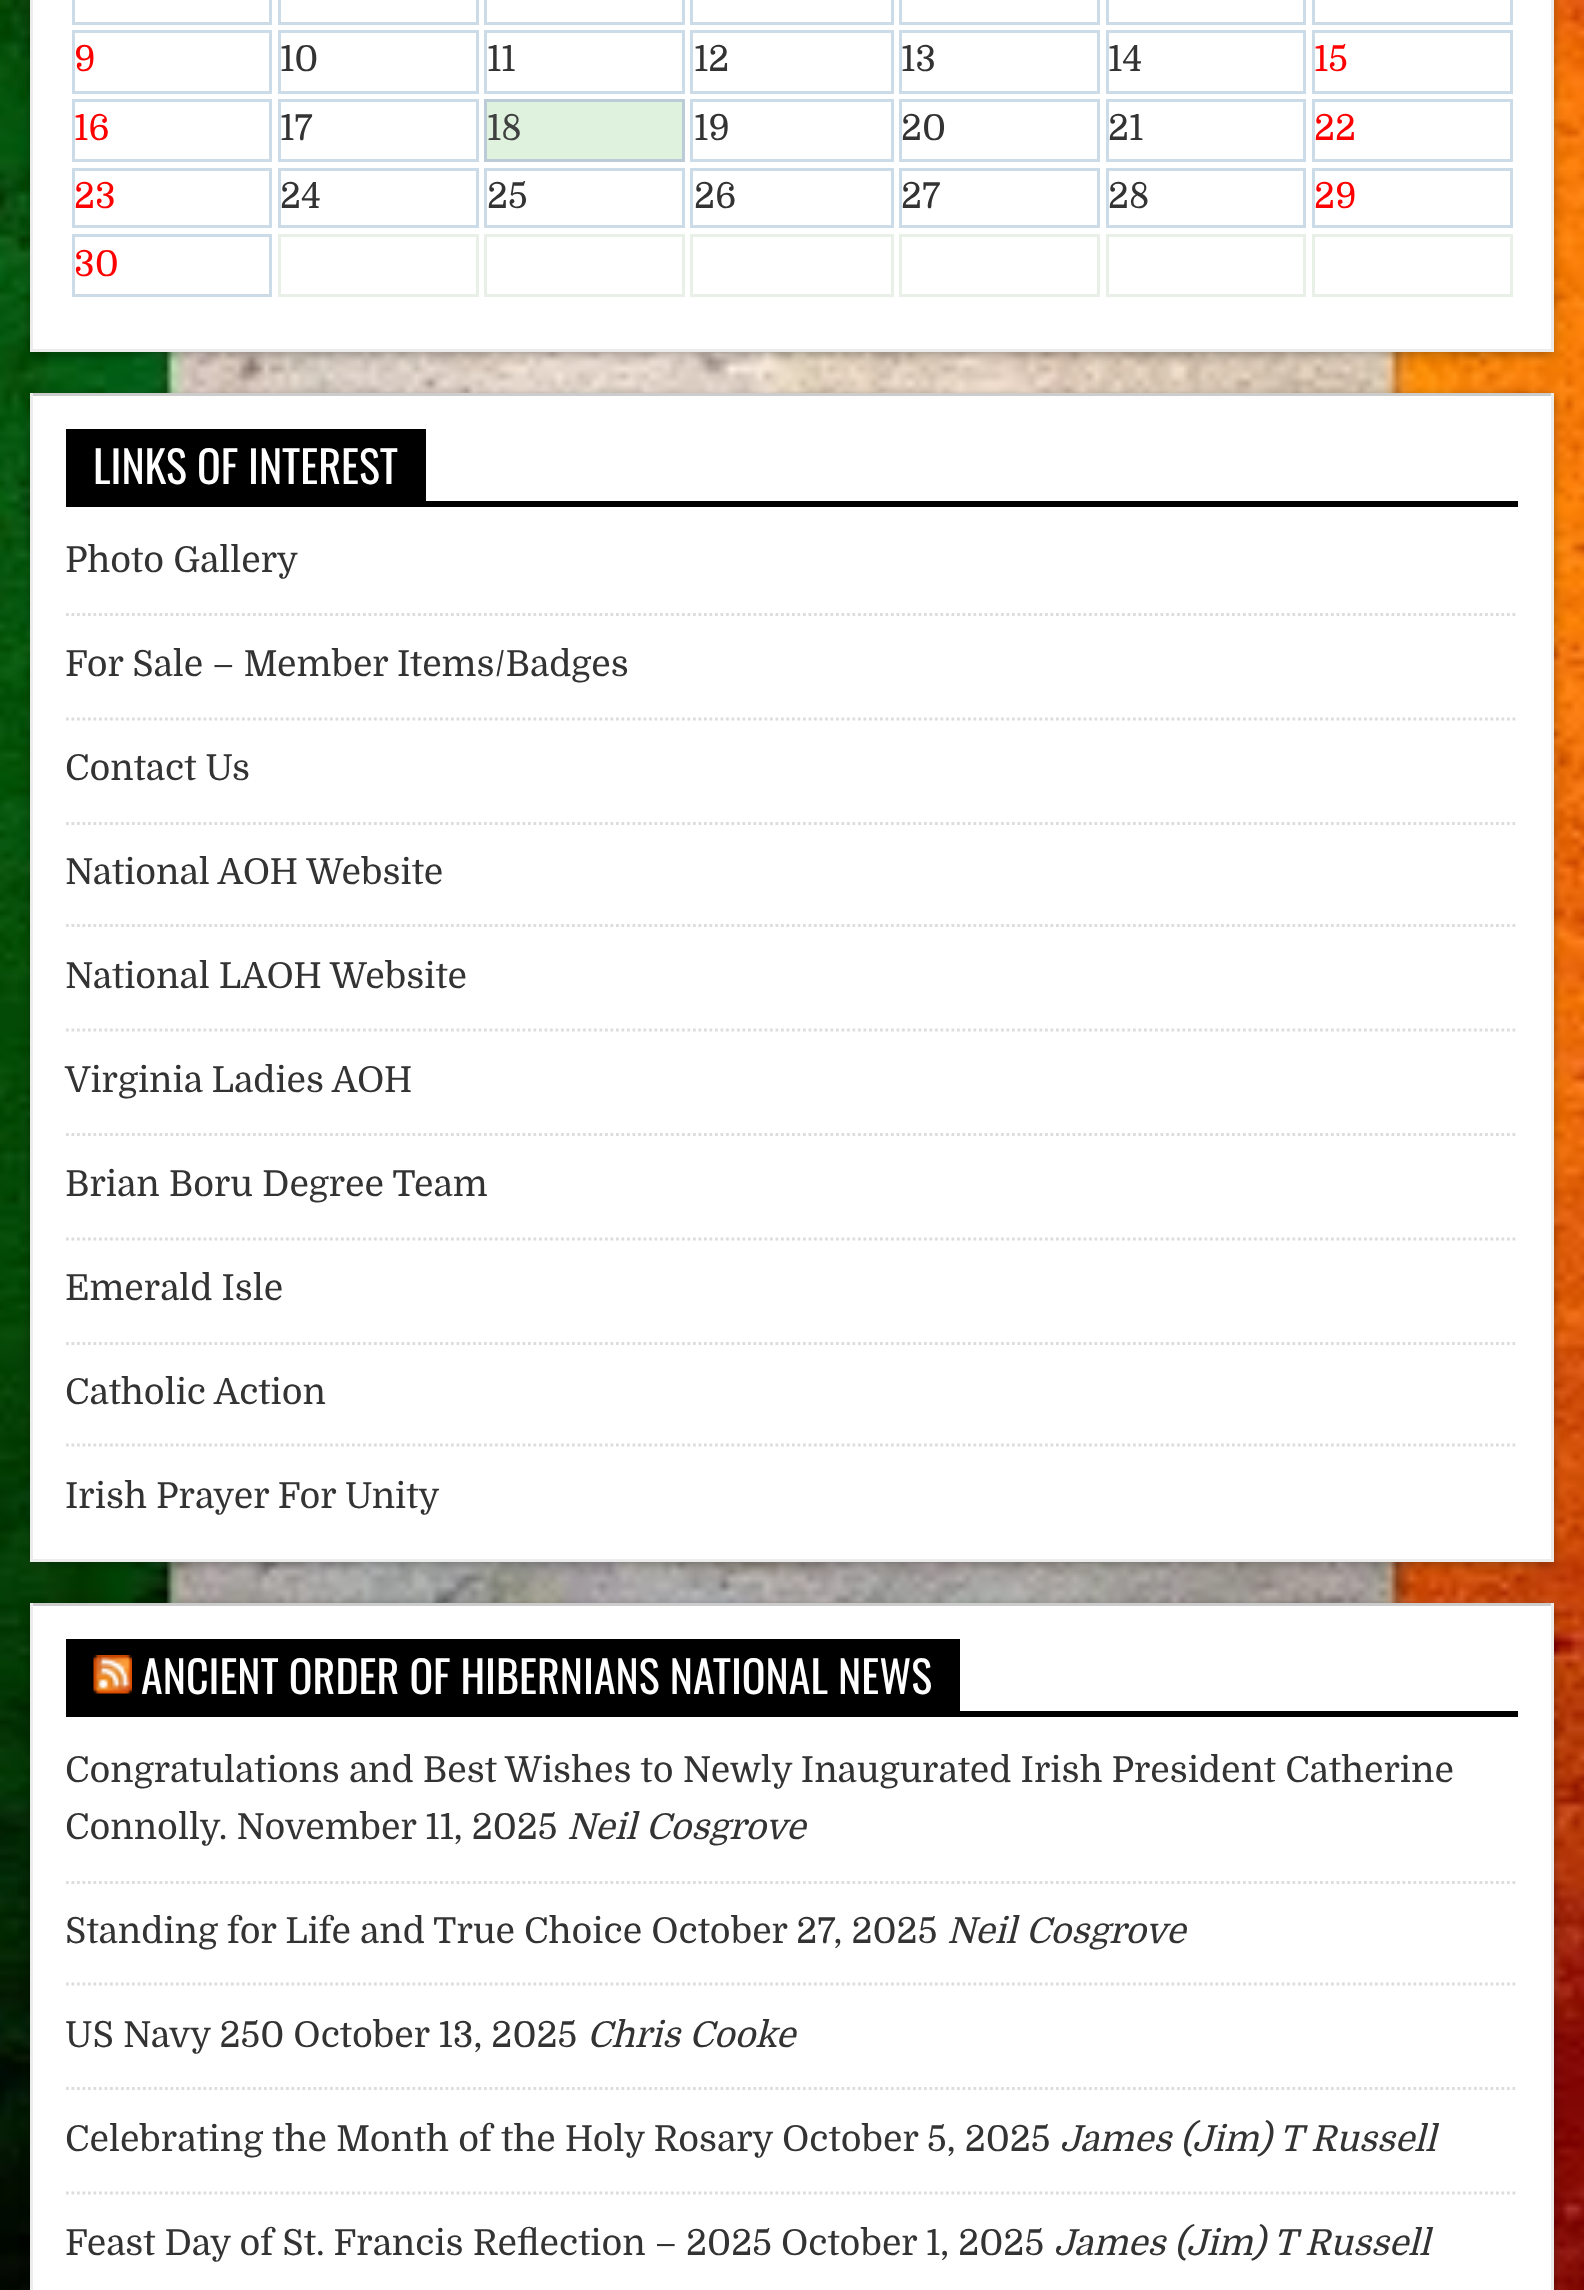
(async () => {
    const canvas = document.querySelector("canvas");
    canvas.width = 1584;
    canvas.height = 2290;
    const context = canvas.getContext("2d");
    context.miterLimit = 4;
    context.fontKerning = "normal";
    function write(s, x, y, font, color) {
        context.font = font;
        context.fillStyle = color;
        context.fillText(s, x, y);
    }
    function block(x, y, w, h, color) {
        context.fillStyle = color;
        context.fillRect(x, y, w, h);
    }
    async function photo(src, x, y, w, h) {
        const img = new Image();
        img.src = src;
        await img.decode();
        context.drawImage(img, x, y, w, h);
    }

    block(0, 0, 1584, 2290, "rgb(255, 255, 255)");
    await photo("media/1.png", 0, 0, 1584, 2290);
    context.fillStyle = "rgba(0, 0, 0, 0.3)";
    context.filter = "blur(5.5px)";
    context.beginPath();
    context.rect(30, -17, 1524, 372);
    context.fill();
    context.filter = "none";
    block(33, 0, 1518, 349, "rgb(255, 255, 255)");
    block(1551, 0, 3, 352, "rgb(236, 236, 236)");
    block(30, 349, 1524, 3, "rgb(236, 236, 236)");
    block(30, 0, 3, 352, "rgb(236, 236, 236)");
    context.strokeStyle = "rgb(204, 219, 232)";
    context.lineWidth = 3;
    context.strokeRect(73.5, -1.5, 197, 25);
    context.strokeRect(279.5, -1.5, 198, 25);
    context.strokeRect(485.5, -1.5, 198, 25);
    context.strokeRect(691.5, -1.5, 201, 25);
    context.strokeRect(900.5, -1.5, 198, 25);
    context.strokeRect(1107.5, -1.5, 197, 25);
    context.strokeRect(1313.5, -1.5, 198, 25);
    context.strokeRect(73.5, 31.5, 197, 61);
    write("9", 74, 71, "35.75px Domine", "rgb(255, 0, 0)");
    context.strokeRect(279.5, 31.5, 198, 61);
    write("10", 280, 71, "35.75px Domine", "rgb(51, 51, 51)");
    context.strokeRect(485.5, 31.5, 198, 61);
    write("11", 487, 71, "35.75px Domine", "rgb(51, 51, 51)");
    context.strokeRect(691.5, 31.5, 201, 61);
    write("12", 694, 71, "35.75px Domine", "rgb(51, 51, 51)");
    context.strokeRect(900.5, 31.5, 198, 61);
    write("13", 901, 71, "35.75px Domine", "rgb(51, 51, 51)");
    context.strokeRect(1107.5, 31.5, 197, 61);
    write("14", 1108, 71, "35.75px Domine", "rgb(51, 51, 51)");
    context.strokeRect(1313.5, 31.5, 198, 61);
    write("15", 1314, 71, "35.75px Domine", "rgb(255, 0, 0)");
    context.strokeRect(73.5, 100.5, 197, 60);
    write("16", 74, 140, "35.75px Domine", "rgb(255, 0, 0)");
    context.strokeRect(279.5, 100.5, 198, 60);
    write("17", 280, 140, "35.75px Domine", "rgb(51, 51, 51)");
    context.fillStyle = "rgb(222, 242, 222)";
    context.beginPath();
    context.rect(485.5, 100.5, 198, 60);
    context.fill();
    context.strokeStyle = "rgb(188, 203, 216)";
    context.stroke();
    write("18", 487, 140, "35.75px Domine", "rgb(64, 64, 64)");
    context.strokeStyle = "rgb(204, 219, 232)";
    context.strokeRect(691.5, 100.5, 201, 60);
    write("19", 694, 140, "35.75px Domine", "rgb(51, 51, 51)");
    context.strokeRect(900.5, 100.5, 198, 60);
    write("20", 901, 140, "35.75px Domine", "rgb(51, 51, 51)");
    context.strokeRect(1107.5, 100.5, 197, 60);
    write("21", 1108, 140, "35.75px Domine", "rgb(51, 51, 51)");
    context.strokeRect(1313.5, 100.5, 198, 60);
    write("22", 1314, 140, "35.75px Domine", "rgb(255, 0, 0)");
    context.strokeRect(73.5, 169.5, 197, 57);
    write("23", 74, 208, "35.75px Domine", "rgb(255, 0, 0)");
    context.strokeRect(279.5, 169.5, 198, 57);
    write("24", 280, 208, "35.75px Domine", "rgb(51, 51, 51)");
    context.strokeRect(485.5, 169.5, 198, 57);
    write("25", 487, 208, "35.75px Domine", "rgb(51, 51, 51)");
    context.strokeRect(691.5, 169.5, 201, 57);
    write("26", 694, 208, "35.75px Domine", "rgb(51, 51, 51)");
    context.strokeRect(900.5, 169.5, 198, 57);
    write("27", 901, 208, "35.75px Domine", "rgb(51, 51, 51)");
    context.strokeRect(1107.5, 169.5, 197, 57);
    write("28", 1108, 208, "35.75px Domine", "rgb(51, 51, 51)");
    context.strokeRect(1313.5, 169.5, 198, 57);
    write("29", 1314, 208, "35.75px Domine", "rgb(255, 0, 0)");
    context.strokeRect(73.5, 235.5, 197, 60);
    write("30", 74, 276, "35.75px Domine", "rgb(255, 0, 0)");
    context.strokeStyle = "rgb(233, 240, 232)";
    context.strokeRect(279.5, 235.5, 198, 60);
    context.strokeRect(485.5, 235.5, 198, 60);
    context.strokeRect(691.5, 235.5, 201, 60);
    context.strokeRect(900.5, 235.5, 198, 60);
    context.strokeRect(1107.5, 235.5, 197, 60);
    context.strokeRect(1313.5, 235.5, 198, 60);
    context.fillStyle = "rgba(0, 0, 0, 0.3)";
    context.filter = "blur(5.5px)";
    context.beginPath();
    context.rect(30, 396, 1524, 1169);
    context.fill();
    context.filter = "none";
    block(33, 396, 1518, 1163, "rgb(255, 255, 255)");
    block(30, 393, 1524, 3, "rgb(204, 204, 204)");
    block(1551, 393, 3, 1169, "rgb(236, 236, 236)");
    block(30, 1559, 1524, 3, "rgb(236, 236, 236)");
    block(30, 393, 3, 1169, "rgb(236, 236, 236)");
    block(66, 501, 1452, 6, "rgb(0, 0, 0)");
    block(66, 429, 360, 72, "rgb(0, 0, 0)");
    write("LINKS OF INTEREST", 93, 484, "44px Oswald", "rgb(255, 255, 255)");
    context.beginPath();
    context.moveTo(66, 614.5);
    context.lineTo(1518, 614.5);
    context.strokeStyle = "rgb(221, 221, 221)";
    context.lineWidth = 2.8;
    context.setLineDash([2.75, 2.75]);
    context.stroke();
    write("Photo Gallery", 65, 572, "35.75px Domine", "rgb(51, 51, 51)");
    context.beginPath();
    context.moveTo(66, 719);
    context.lineTo(1518, 719);
    context.stroke();
    write("For Sale – Member Items/Badges", 65, 676, "35.75px Domine", "rgb(51, 51, 51)");
    context.beginPath();
    context.moveTo(66, 823.5);
    context.lineTo(1518, 823.5);
    context.stroke();
    write("Contact Us", 65, 780, "35.75px Domine", "rgb(51, 51, 51)");
    context.beginPath();
    context.moveTo(66, 925.5);
    context.lineTo(1518, 925.5);
    context.stroke();
    write("National AOH Website", 65, 884, "35.75px Domine", "rgb(51, 51, 51)");
    context.beginPath();
    context.moveTo(66, 1030);
    context.lineTo(1518, 1030);
    context.stroke();
    write("National LAOH Website", 65, 988, "35.75px Domine", "rgb(51, 51, 51)");
    context.beginPath();
    context.moveTo(66, 1134.5);
    context.lineTo(1518, 1134.5);
    context.stroke();
    write("Virginia Ladies AOH", 65, 1092, "35.75px Domine", "rgb(51, 51, 51)");
    context.beginPath();
    context.moveTo(66, 1239);
    context.lineTo(1518, 1239);
    context.stroke();
    write("Brian Boru Degree Team", 65, 1196, "35.75px Domine", "rgb(51, 51, 51)");
    context.beginPath();
    context.moveTo(66, 1343.5);
    context.lineTo(1518, 1343.5);
    context.stroke();
    write("Emerald Isle", 65, 1300, "35.75px Domine", "rgb(51, 51, 51)");
    context.beginPath();
    context.moveTo(66, 1445);
    context.lineTo(1518, 1445);
    context.stroke();
    write("Catholic Action", 65, 1404, "35.75px Domine", "rgb(51, 51, 51)");
    write("Irish Prayer For Unity", 65, 1508, "35.75px Domine", "rgb(51, 51, 51)");
    context.fillStyle = "rgba(0, 0, 0, 0.3)";
    context.filter = "blur(5.5px)";
    context.beginPath();
    context.rect(30, 1606, 1524, 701);
    context.fill();
    context.filter = "none";
    block(33, 1606, 1518, 684, "rgb(255, 255, 255)");
    block(30, 1603, 1524, 3, "rgb(204, 204, 204)");
    block(1551, 1603, 3, 687, "rgb(236, 236, 236)");
    block(30, 1603, 3, 687, "rgb(236, 236, 236)");
    block(66, 1711, 1452, 6, "rgb(0, 0, 0)");
    block(66, 1639, 894, 72, "rgb(0, 0, 0)");
    await photo("media/2.png", 93, 1655, 39, 39);
    write("ANCIENT ORDER OF HIBERNIANS NATIONAL NEWS", 141, 1694, "44px Oswald", "rgb(255, 255, 255)");
    context.beginPath();
    context.moveTo(66, 1882.5);
    context.lineTo(1518, 1882.5);
    context.stroke();
    write("Congratulations and Best Wishes to Newly Inaugurated Irish President Catherine", 65, 1782, "35.75px Domine", "rgb(51, 51, 51)");
    write("Connolly. November 11, 2025", 65, 1839, "35.75px Domine", "rgb(51, 51, 51)");
    write("Neil Cosgrove", 567, 1839, "italic 35.75px Domine", "rgb(51, 51, 51)");
    context.beginPath();
    context.moveTo(66, 1984);
    context.lineTo(1518, 1984);
    context.stroke();
    write("Standing for Life and True Choice October 27, 2025", 65, 1943, "35.75px Domine", "rgb(51, 51, 51)");
    write("Neil Cosgrove", 947, 1943, "italic 35.75px Domine", "rgb(51, 51, 51)");
    context.beginPath();
    context.moveTo(66, 2088.5);
    context.lineTo(1518, 2088.5);
    context.stroke();
    write("US Navy 250 October 13, 2025", 65, 2047, "35.75px Domine", "rgb(51, 51, 51)");
    write("Chris Cooke", 587, 2047, "italic 35.75px Domine", "rgb(51, 51, 51)");
    context.beginPath();
    context.moveTo(66, 2193);
    context.lineTo(1518, 2193);
    context.stroke();
    write("Celebrating the Month of the Holy Rosary", 65, 2151, "35.75px Domine", "rgb(51, 51, 51)");
    write("October 5, 2025", 782, 2151, "35.75px Domine", "rgb(51, 51, 51)");
    write("James (Jim) T Russell", 1060, 2151, "italic 35.75px Domine", "rgb(51, 51, 51)");
    write("Feast Day of St. Francis Reflection – 2025 October 1, 2025", 65, 2255, "35.75px Domine", "rgb(51, 51, 51)");
    write("James (Jim) T Russell", 1054, 2255, "italic 35.75px Domine", "rgb(51, 51, 51)");
})();
